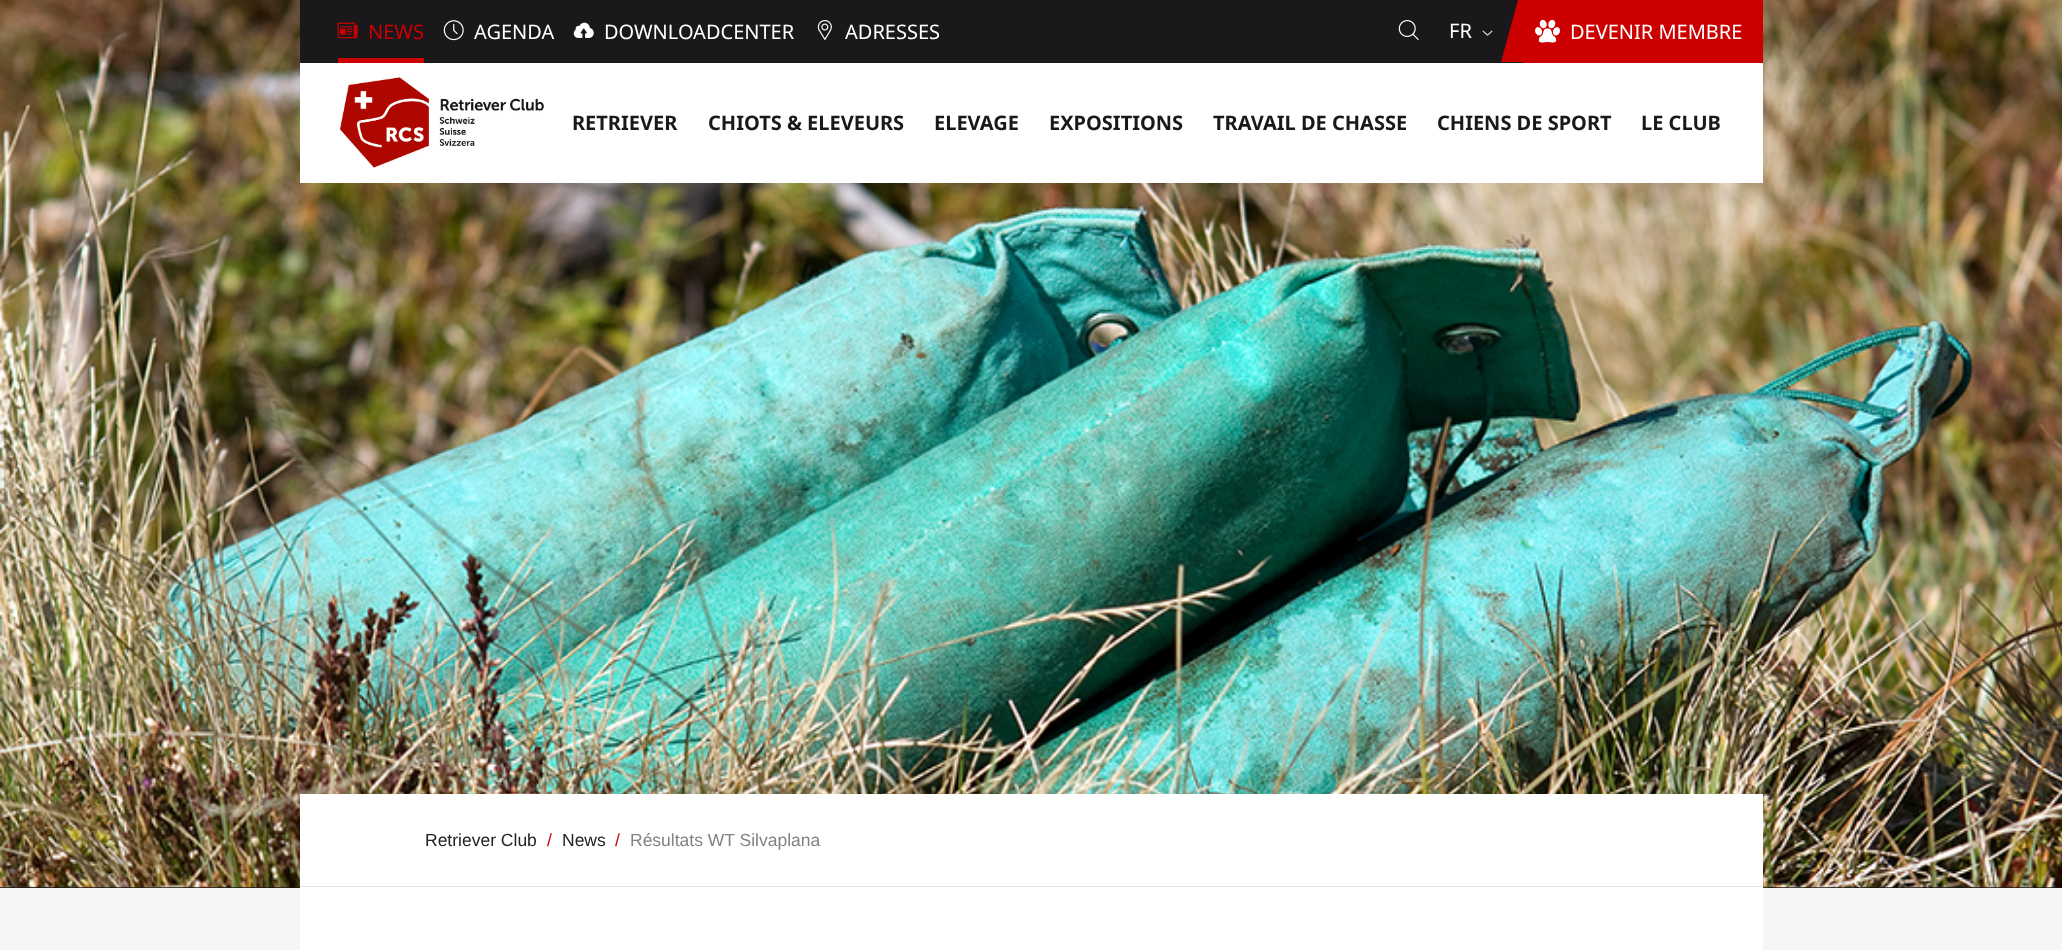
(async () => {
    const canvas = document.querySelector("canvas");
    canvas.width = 2062;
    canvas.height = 950;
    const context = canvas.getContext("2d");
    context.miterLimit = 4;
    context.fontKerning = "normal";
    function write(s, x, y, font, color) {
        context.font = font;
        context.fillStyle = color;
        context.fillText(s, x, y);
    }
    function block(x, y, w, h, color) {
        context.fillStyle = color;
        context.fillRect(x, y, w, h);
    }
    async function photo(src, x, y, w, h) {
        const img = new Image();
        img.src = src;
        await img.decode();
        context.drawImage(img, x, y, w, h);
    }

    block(0, 0, 2062, 950, "rgb(26, 24, 27)");
    await photo("media/1.png", 0, 0, 2062, 888);
    block(300, 0, 1223, 63, "rgb(26, 24, 27)");
    block(338, 58, 86, 5, "rgb(204, 0, 1)");
    await photo("media/2.png", 337, 22, 21, 17);
    write("NEWS", 368, 39, "20px Noto Sans", "rgb(204, 0, 1)");
    await photo("media/3.png", 443, 20, 21, 21);
    write("AGENDA", 474, 39, "20px Noto Sans", "rgb(255, 255, 255)");
    await photo("media/4.png", 573, 22, 21, 16);
    write("DOWNLOADCENTER", 604, 39, "20px Noto Sans", "rgb(255, 255, 255)");
    await photo("media/5.png", 817, 20, 15, 20);
    write("ADRESSES", 845, 39, "20px Noto Sans", "rgb(255, 255, 255)");
    await photo("media/6.png", 1398, 20, 21, 20);
    write("FR", 1449, 38, "20px Noto Sans", "rgb(255, 255, 255)");
    await photo("media/7.png", 1482, 30, 11, 6);
    block(1523, 0, 240, 63, "rgb(204, 0, 1)");
    await photo("media/8.png", 1535, 19, 25, 24);
    context.beginPath();
    context.moveTo(1518, 0);
    context.lineTo(1543, 0);
    context.lineTo(1526, 62);
    context.lineTo(1501, 62);
    context.closePath();
    context.fill();
    write("DEVENIR MEMBRE", 1570, 39, "20px Noto Sans", "rgb(255, 255, 255)");
    block(300, 63, 1463, 120, "rgb(255, 255, 255)");
    await photo("media/9.png", 340, 77, 204, 91);
    write("RETRIEVER", 572, 130, "bold 20px Noto Sans", "rgb(26, 24, 27)");
    write("CHIOTS & ELEVEURS", 708, 130, "bold 20px Noto Sans", "rgb(26, 24, 27)");
    write("ELEVAGE", 934, 130, "bold 20px Noto Sans", "rgb(26, 24, 27)");
    write("EXPOSITIONS", 1049, 130, "bold 20px Noto Sans", "rgb(26, 24, 27)");
    write("TRAVAIL DE CHASSE", 1213, 130, "bold 20px Noto Sans", "rgb(26, 24, 27)");
    write("CHIENS DE SPORT", 1437, 130, "bold 20px Noto Sans", "rgb(26, 24, 27)");
    write("LE CLUB", 1641, 130, "bold 20px Noto Sans", "rgb(26, 24, 27)");
    block(0, 888, 2062, 62, "rgb(245, 246, 248)");
    block(300, 794, 1463, 156, "rgb(255, 255, 255)");
    block(300, 886, 1463, 1, "rgb(229, 229, 229)");
    write("Retriever Club", 425, 846, "17.5px Liberation Sans", "rgb(34, 34, 34)");
    write("/", 547, 846, "17.5px Liberation Sans", "rgb(204, 0, 1)");
    write("News", 562, 846, "17.5px Liberation Sans", "rgb(34, 34, 34)");
    write("/", 615, 846, "17.5px Liberation Sans", "rgb(204, 0, 1)");
    write("Résultats WT Silvaplana", 630, 846, "17.5px Liberation Sans", "rgb(130, 130, 130)");
})();
